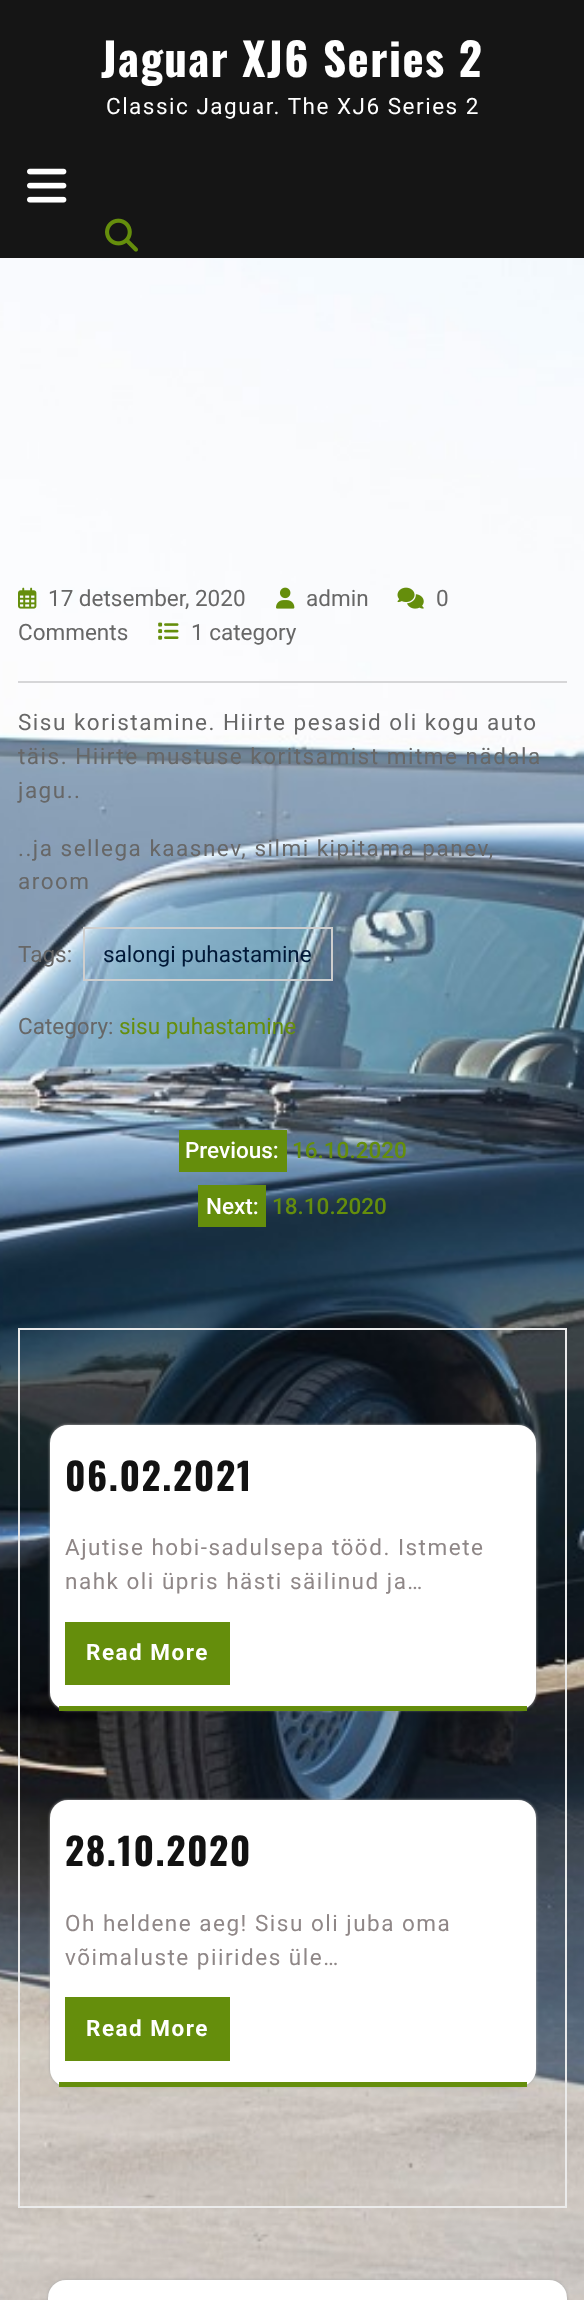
(async () => {
    const canvas = document.querySelector("canvas");
    canvas.width = 584;
    canvas.height = 2300;
    const context = canvas.getContext("2d");
    context.miterLimit = 4;
    context.fontKerning = "normal";
    function write(s, x, y, font, color) {
        context.font = font;
        context.fillStyle = color;
        context.fillText(s, x, y);
    }
    function block(x, y, w, h, color) {
        context.fillStyle = color;
        context.fillRect(x, y, w, h);
    }
    function card(x, y, w, h, r, color) {
        context.fillStyle = color;
        context.beginPath();
        context.roundRect(x, y, w, h, r);
        context.fill();
    }
    async function photo(src, x, y, w, h) {
        const img = new Image();
        img.src = src;
        await img.decode();
        context.drawImage(img, x, y, w, h);
    }

    block(0, 0, 584, 2300, "rgb(255, 255, 255)");
    await photo("media/1.png", 0, 558, 584, 1742);
    block(0, 0, 584, 258, "rgb(21, 21, 21)");
    context.letterSpacing = "1.5px";
    write("Jaguar XJ6 Series 2", 101, 77, "bold 45px Oswald", "rgb(255, 255, 255)");
    write("Classic Jaguar. The XJ6 Series 2", 106, 114, "22.5px Roboto", "rgb(255, 255, 255)");
    await photo("media/2.png", 27, 168, 40, 35);
    await photo("media/3.png", 105, 218, 33, 34);
    await photo("media/4.png", 0, 258, 584, 300);
    await photo("media/5.png", 18, 587, 19, 22);
    context.letterSpacing = "0px";
    write("17 detsember, 2020", 48, 606, "22.5px Roboto", "rgb(103, 103, 103)");
    await photo("media/6.png", 276, 587, 19, 22);
    write("admin", 306, 606, "22.5px Roboto", "rgb(103, 103, 103)");
    await photo("media/7.png", 397, 587, 27, 22);
    write("0", 436, 606, "22.5px Roboto", "rgb(103, 103, 103)");
    write("Comments", 18, 640, "22.5px Roboto", "rgb(103, 103, 103)");
    await photo("media/8.png", 158, 622, 21, 18);
    write("1 category", 191, 640, "22.5px Roboto", "rgb(103, 103, 103)");
    block(18, 681, 549, 2, "rgb(214, 214, 216)");
    context.letterSpacing = "1.5px";
    write("Sisu koristamine. Hiirte pesasid oli kogu auto", 18, 730, "22.5px Roboto", "rgb(103, 103, 103)");
    write("täis. Hiirte mustuse koritsamist mitme nädala", 18, 764, "22.5px Roboto", "rgb(103, 103, 103)");
    write("jagu..", 18, 798, "22.5px Roboto", "rgb(103, 103, 103)");
    write("..ja sellega kaasnev, silmi kipitama panev,", 18, 856, "22.5px Roboto", "rgb(103, 103, 103)");
    write("aroom", 18, 889, "22.5px Roboto", "rgb(103, 103, 103)");
    context.letterSpacing = "0px";
    write("Tags:", 18, 962, "22.5px Roboto", "rgb(103, 103, 103)");
    context.strokeStyle = "rgb(206, 206, 206)";
    context.lineWidth = 2;
    context.strokeRect(84, 928, 248, 52);
    write("salongi puhastamine", 103, 962, "22.5px Roboto", "rgb(0, 24, 55)");
    write("Category:", 18, 1034, "22.5px Roboto", "rgb(103, 103, 103)");
    write("sisu puhastamine", 119, 1034, "22.5px Roboto", "rgb(101, 142, 12)");
    block(179, 1130, 108, 42, "rgb(101, 142, 12)");
    write("Previous:", 185, 1158, "500 22.5px Roboto", "rgb(255, 255, 255)");
    write("16.10.2020", 292, 1158, "500 22.5px Roboto", "rgb(101, 142, 12)");
    block(198, 1185, 68, 42, "rgb(101, 142, 12)");
    write("Next:", 206, 1214, "500 22.5px Roboto", "rgb(255, 255, 255)");
    write("18.10.2020", 272, 1214, "500 22.5px Roboto", "rgb(101, 142, 12)");
    context.strokeStyle = "rgb(235, 235, 235)";
    context.strokeRect(19, 1329, 547, 878);
    context.fillStyle = "rgb(170, 170, 170)";
    context.filter = "blur(1.5px)";
    context.beginPath();
    context.roundRect(50, 1425, 486, 285, 18);
    context.fill();
    context.filter = "none";
    card(50, 1425, 486, 285, 18, "rgb(255, 255, 255)");
    block(59, 1706, 468, 5, "rgb(101, 142, 12)");
    context.letterSpacing = "1.5px";
    write("06.02.2021", 65, 1491, "bold 37.5px Oswald", "rgb(18, 18, 18)");
    write("Ajutise hobi-sadulsepa tööd. Istmete", 65, 1555, "22.5px Roboto", "rgb(143, 135, 135)");
    write("nahk oli üpris hästi säilinud ja…", 65, 1589, "22.5px Roboto", "rgb(143, 135, 135)");
    block(65, 1622, 165, 63, "rgb(101, 142, 12)");
    write("Read More", 86, 1660, "bold 22.5px Roboto", "rgb(255, 255, 255)");
    context.fillStyle = "rgb(170, 170, 170)";
    context.filter = "blur(1.5px)";
    context.beginPath();
    context.roundRect(50, 1800, 486, 287, 18);
    context.fill();
    context.filter = "none";
    card(50, 1800, 486, 287, 18, "rgb(255, 255, 255)");
    block(59, 2082, 468, 5, "rgb(101, 142, 12)");
    write("28.10.2020", 65, 1866, "bold 37.5px Oswald", "rgb(18, 18, 18)");
    write("Oh heldene aeg! Sisu oli juba oma", 65, 1931, "22.5px Roboto", "rgb(143, 135, 135)");
    write("võimaluste piirides üle…", 65, 1965, "22.5px Roboto", "rgb(143, 135, 135)");
    block(65, 1997, 165, 64, "rgb(101, 142, 12)");
    write("Read More", 86, 2036, "bold 22.5px Roboto", "rgb(255, 255, 255)");
    context.fillStyle = "rgb(170, 170, 170)";
    context.filter = "blur(1.5px)";
    context.beginPath();
    context.roundRect(48, 2280, 519, 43, 18);
    context.fill();
    context.filter = "none";
    card(48, 2280, 519, 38, 18, "rgb(255, 255, 255)");
})();
